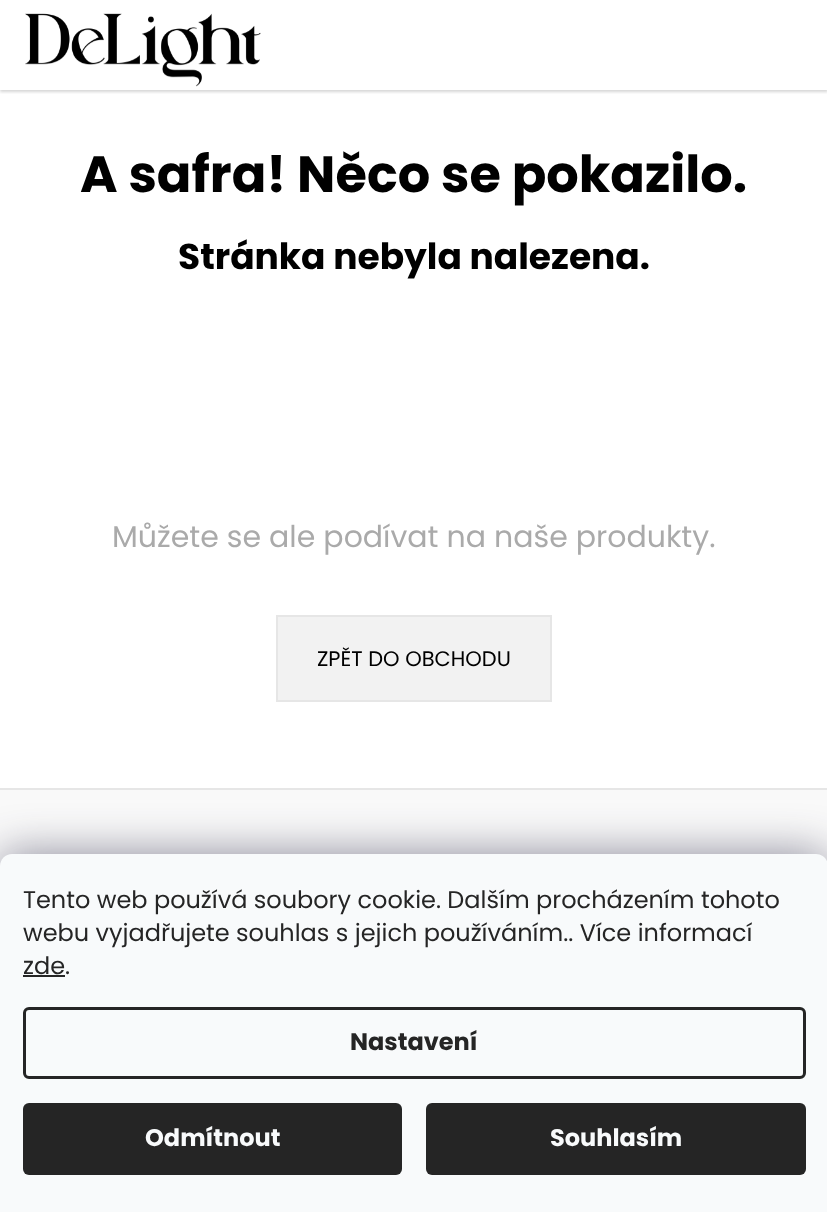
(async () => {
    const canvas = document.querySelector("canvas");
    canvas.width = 827;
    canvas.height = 1212;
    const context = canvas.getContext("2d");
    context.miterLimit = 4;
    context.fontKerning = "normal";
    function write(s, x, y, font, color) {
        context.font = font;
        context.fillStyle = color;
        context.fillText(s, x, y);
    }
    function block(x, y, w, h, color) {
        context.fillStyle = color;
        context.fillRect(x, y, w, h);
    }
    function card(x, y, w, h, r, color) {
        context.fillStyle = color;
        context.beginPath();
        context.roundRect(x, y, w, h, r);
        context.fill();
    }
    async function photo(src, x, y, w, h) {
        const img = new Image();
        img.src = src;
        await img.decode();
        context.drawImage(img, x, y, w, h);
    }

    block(0, 0, 827, 1212, "rgb(255, 255, 255)");
    context.save();
    context.beginPath();
    context.rect(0, 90, 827, 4);
    context.clip();
    context.fillStyle = "rgba(0, 0, 0, 0.16)";
    context.filter = "blur(1.5px)";
    context.beginPath();
    context.rect(0, 2, 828, 90);
    context.fill();
    context.filter = "none";
    context.restore();
    await photo("media/1.png", 25, 13, 236, 74);
    write("A safra! Něco se pokazilo.", 80, 192, "bold 51px Poppins", "rgb(0, 0, 0)");
    write("Stránka nebyla nalezena.", 178, 269, "bold 36px Poppins", "rgb(0, 0, 0)");
    write("Můžete se ale podívat na naše produkty.", 112, 547, "30px Poppins", "rgb(170, 170, 170)");
    context.fillStyle = "rgb(242, 242, 242)";
    context.beginPath();
    context.rect(277, 616, 274, 85);
    context.fill();
    context.strokeStyle = "rgb(230, 230, 230)";
    context.lineWidth = 2;
    context.stroke();
    write("ZPĚT DO OBCHODU", 317, 666, "21px Poppins", "rgb(0, 0, 0)");
    block(0, 790, 827, 76, "rgb(249, 249, 249)");
    block(0, 788, 827, 2, "rgb(230, 230, 230)");
    context.fillStyle = "rgba(27, 25, 57, 0.5)";
    context.filter = "blur(22.5px)";
    context.beginPath();
    context.roundRect(0, 854, 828, 358, 12);
    context.fill();
    context.filter = "none";
    context.fillStyle = "rgb(248, 250, 251)";
    context.beginPath();
    context.moveTo(12, 854);
    context.lineTo(816, 854);
    context.bezierCurveTo(822.5, 854, 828, 859.5, 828, 866);
    context.lineTo(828, 1212);
    context.lineTo(0, 1212);
    context.lineTo(0, 866);
    context.bezierCurveTo(0, 859.5, 5.5, 854, 12, 854);
    context.closePath();
    context.fill();
    write("Tento web používá soubory cookie. Dalším procházením tohoto", 23, 908, "24px Poppins", "rgb(37, 37, 37)");
    write("webu vyjadřujete souhlas s jejich používáním.. Více informací", 23, 941, "24px Poppins", "rgb(37, 37, 37)");
    write("zde.", 23, 974, "24px Poppins", "rgb(37, 37, 37)");
    block(23, 975, 42, 2, "rgb(37, 37, 37)");
    context.beginPath();
    context.roundRect(24.5, 1008.5, 780, 69, 4.5);
    context.strokeStyle = "rgb(37, 37, 37)";
    context.lineWidth = 3;
    context.stroke();
    write("Nastavení", 350, 1050, "bold 24px Poppins", "rgb(37, 37, 37)");
    card(23, 1103, 379, 72, 6, "rgb(37, 37, 37)");
    write("Odmítnout", 145, 1146, "bold 24px Poppins", "rgb(248, 250, 251)");
    card(426, 1103, 380, 72, 6, "rgb(37, 37, 37)");
    write("Souhlasím", 550, 1146, "bold 24px Poppins", "rgb(248, 250, 251)");
})();
